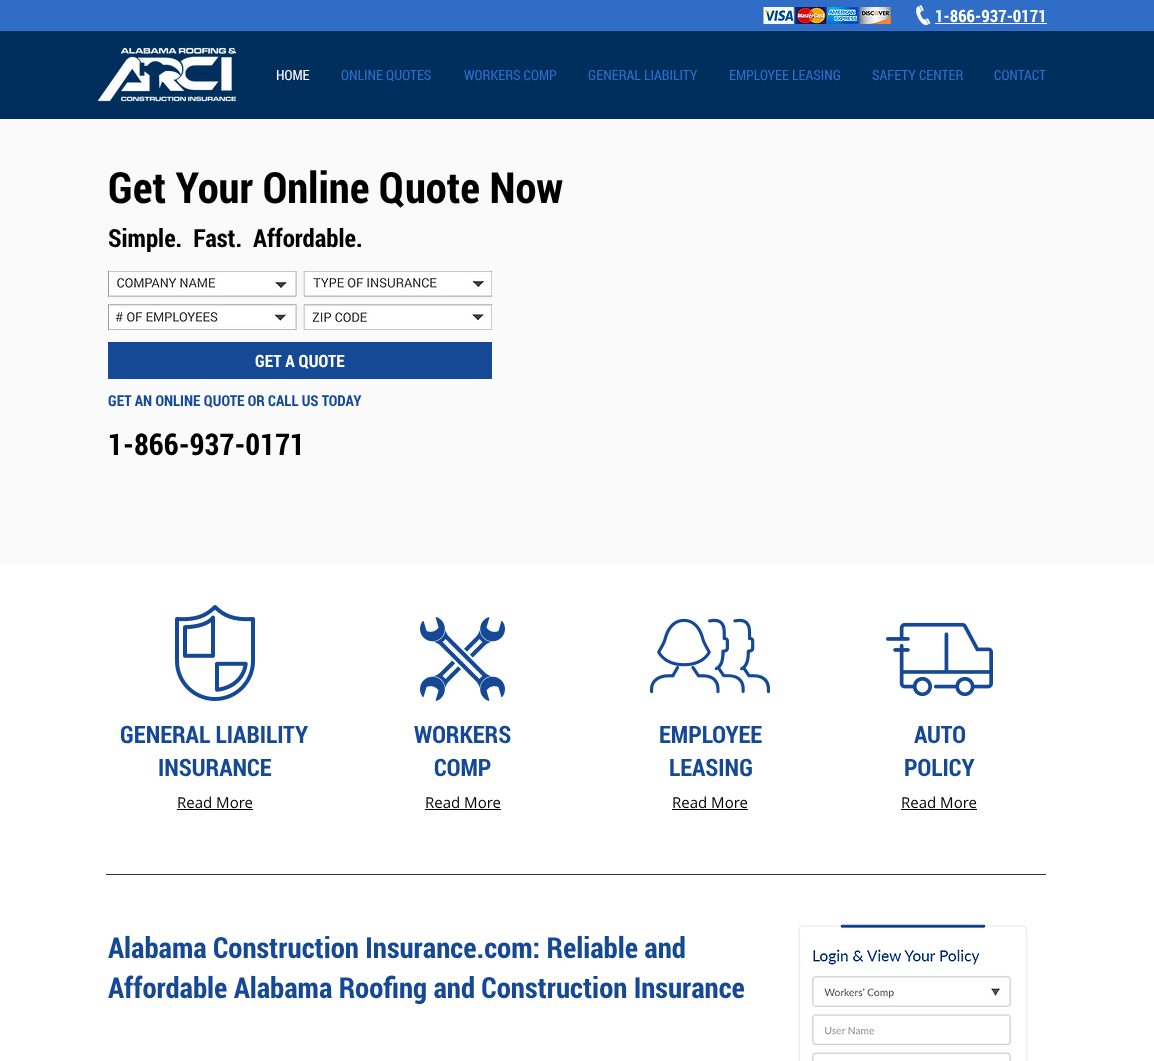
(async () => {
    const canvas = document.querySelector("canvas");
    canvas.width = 1154;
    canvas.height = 1061;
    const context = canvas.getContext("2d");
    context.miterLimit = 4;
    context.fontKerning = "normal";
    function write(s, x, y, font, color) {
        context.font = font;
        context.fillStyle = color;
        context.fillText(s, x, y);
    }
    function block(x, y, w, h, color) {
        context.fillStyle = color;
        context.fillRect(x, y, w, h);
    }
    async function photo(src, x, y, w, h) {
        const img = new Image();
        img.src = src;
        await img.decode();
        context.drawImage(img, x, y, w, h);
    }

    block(0, 0, 1154, 1061, "rgb(255, 255, 255)");
    block(0, 0, 1154, 31, "rgb(48, 109, 198)");
    await photo("media/1.png", 763, 7, 128, 17);
    await photo("media/2.png", 916, 5, 15, 20);
    write("1-866-937-0171", 935, 22, "bold 17px Roboto Condensed", "rgb(255, 255, 255)");
    block(935, 23, 112, 1, "rgb(255, 255, 255)");
    block(0, 31, 1154, 88, "rgb(0, 46, 93)");
    await photo("media/3.png", 97, 47, 140, 55);
    write("HOME", 276, 80, "14px Roboto Condensed", "rgb(255, 255, 255)");
    write("ONLINE QUOTES", 341, 80, "14px Roboto Condensed", "rgb(48, 109, 198)");
    write("WORKERS COMP", 464, 80, "14px Roboto Condensed", "rgb(48, 109, 198)");
    write("GENERAL LIABILITY", 588, 80, "14px Roboto Condensed", "rgb(48, 109, 198)");
    write("EMPLOYEE LEASING", 729, 80, "14px Roboto Condensed", "rgb(48, 109, 198)");
    write("SAFETY CENTER", 872, 80, "14px Roboto Condensed", "rgb(48, 109, 198)");
    write("CONTACT", 994, 80, "14px Roboto Condensed", "rgb(48, 109, 198)");
    block(0, 119, 1154, 445, "rgb(250, 250, 250)");
    write("Get Your Online Quote Now", 108, 203, "bold 43px Roboto Condensed", "rgb(0, 0, 0)");
    write("Simple.  Fast.  Affordable.", 108, 247, "bold 25px Roboto Condensed", "rgb(0, 0, 0)");
    await photo("media/4.png", 108, 271, 384, 59);
    block(108, 342, 384, 37, "rgb(21, 73, 149)");
    write("GET A QUOTE", 255, 367, "bold 17px Roboto Condensed", "rgb(255, 255, 255)");
    write("GET AN ONLINE QUOTE OR CALL US TODAY", 108, 406, "bold 15px Roboto Condensed", "rgb(21, 73, 149)");
    write("1-866-937-0171", 108, 455, "bold 30px Roboto Condensed", "rgb(0, 0, 0)");
    await photo("media/5.png", 175, 605, 80, 96);
    await photo("media/6.png", 420, 617, 85, 84);
    await photo("media/7.png", 650, 618, 120, 76);
    await photo("media/8.png", 886, 622, 107, 75);
    write("GENERAL LIABILITY", 120, 743, "bold 24px Roboto Condensed", "rgb(21, 73, 149)");
    write("INSURANCE", 158, 776, "bold 24px Roboto Condensed", "rgb(21, 73, 149)");
    write("WORKERS", 414, 743, "bold 24px Roboto Condensed", "rgb(21, 73, 149)");
    write("COMP", 434, 776, "bold 24px Roboto Condensed", "rgb(21, 73, 149)");
    write("EMPLOYEE", 659, 743, "bold 24px Roboto Condensed", "rgb(21, 73, 149)");
    write("LEASING", 669, 776, "bold 24px Roboto Condensed", "rgb(21, 73, 149)");
    write("AUTO", 914, 743, "bold 24px Roboto Condensed", "rgb(21, 73, 149)");
    write("POLICY", 904, 776, "bold 24px Roboto Condensed", "rgb(21, 73, 149)");
    write("Read More", 177, 808, "15px Open Sans", "rgb(0, 0, 0)");
    block(177, 809, 76, 1, "rgb(0, 0, 0)");
    write("Read More", 425, 808, "15px Open Sans", "rgb(0, 0, 0)");
    block(425, 809, 76, 1, "rgb(0, 0, 0)");
    write("Read More", 672, 808, "15px Open Sans", "rgb(0, 0, 0)");
    block(672, 809, 76, 1, "rgb(0, 0, 0)");
    write("Read More", 901, 808, "15px Open Sans", "rgb(0, 0, 0)");
    block(901, 809, 76, 1, "rgb(0, 0, 0)");
    block(106, 874, 940, 1, "rgb(51, 51, 51)");
    write("Alabama Construction Insurance.com: Reliable and", 108, 958, "bold 29px Roboto Condensed", "rgb(21, 73, 149)");
    write("Affordable Alabama Roofing and Construction Insurance", 108, 998, "bold 29px Roboto Condensed", "rgb(21, 73, 149)");
    await photo("media/9.png", 798, 924, 230, 137);
})();
